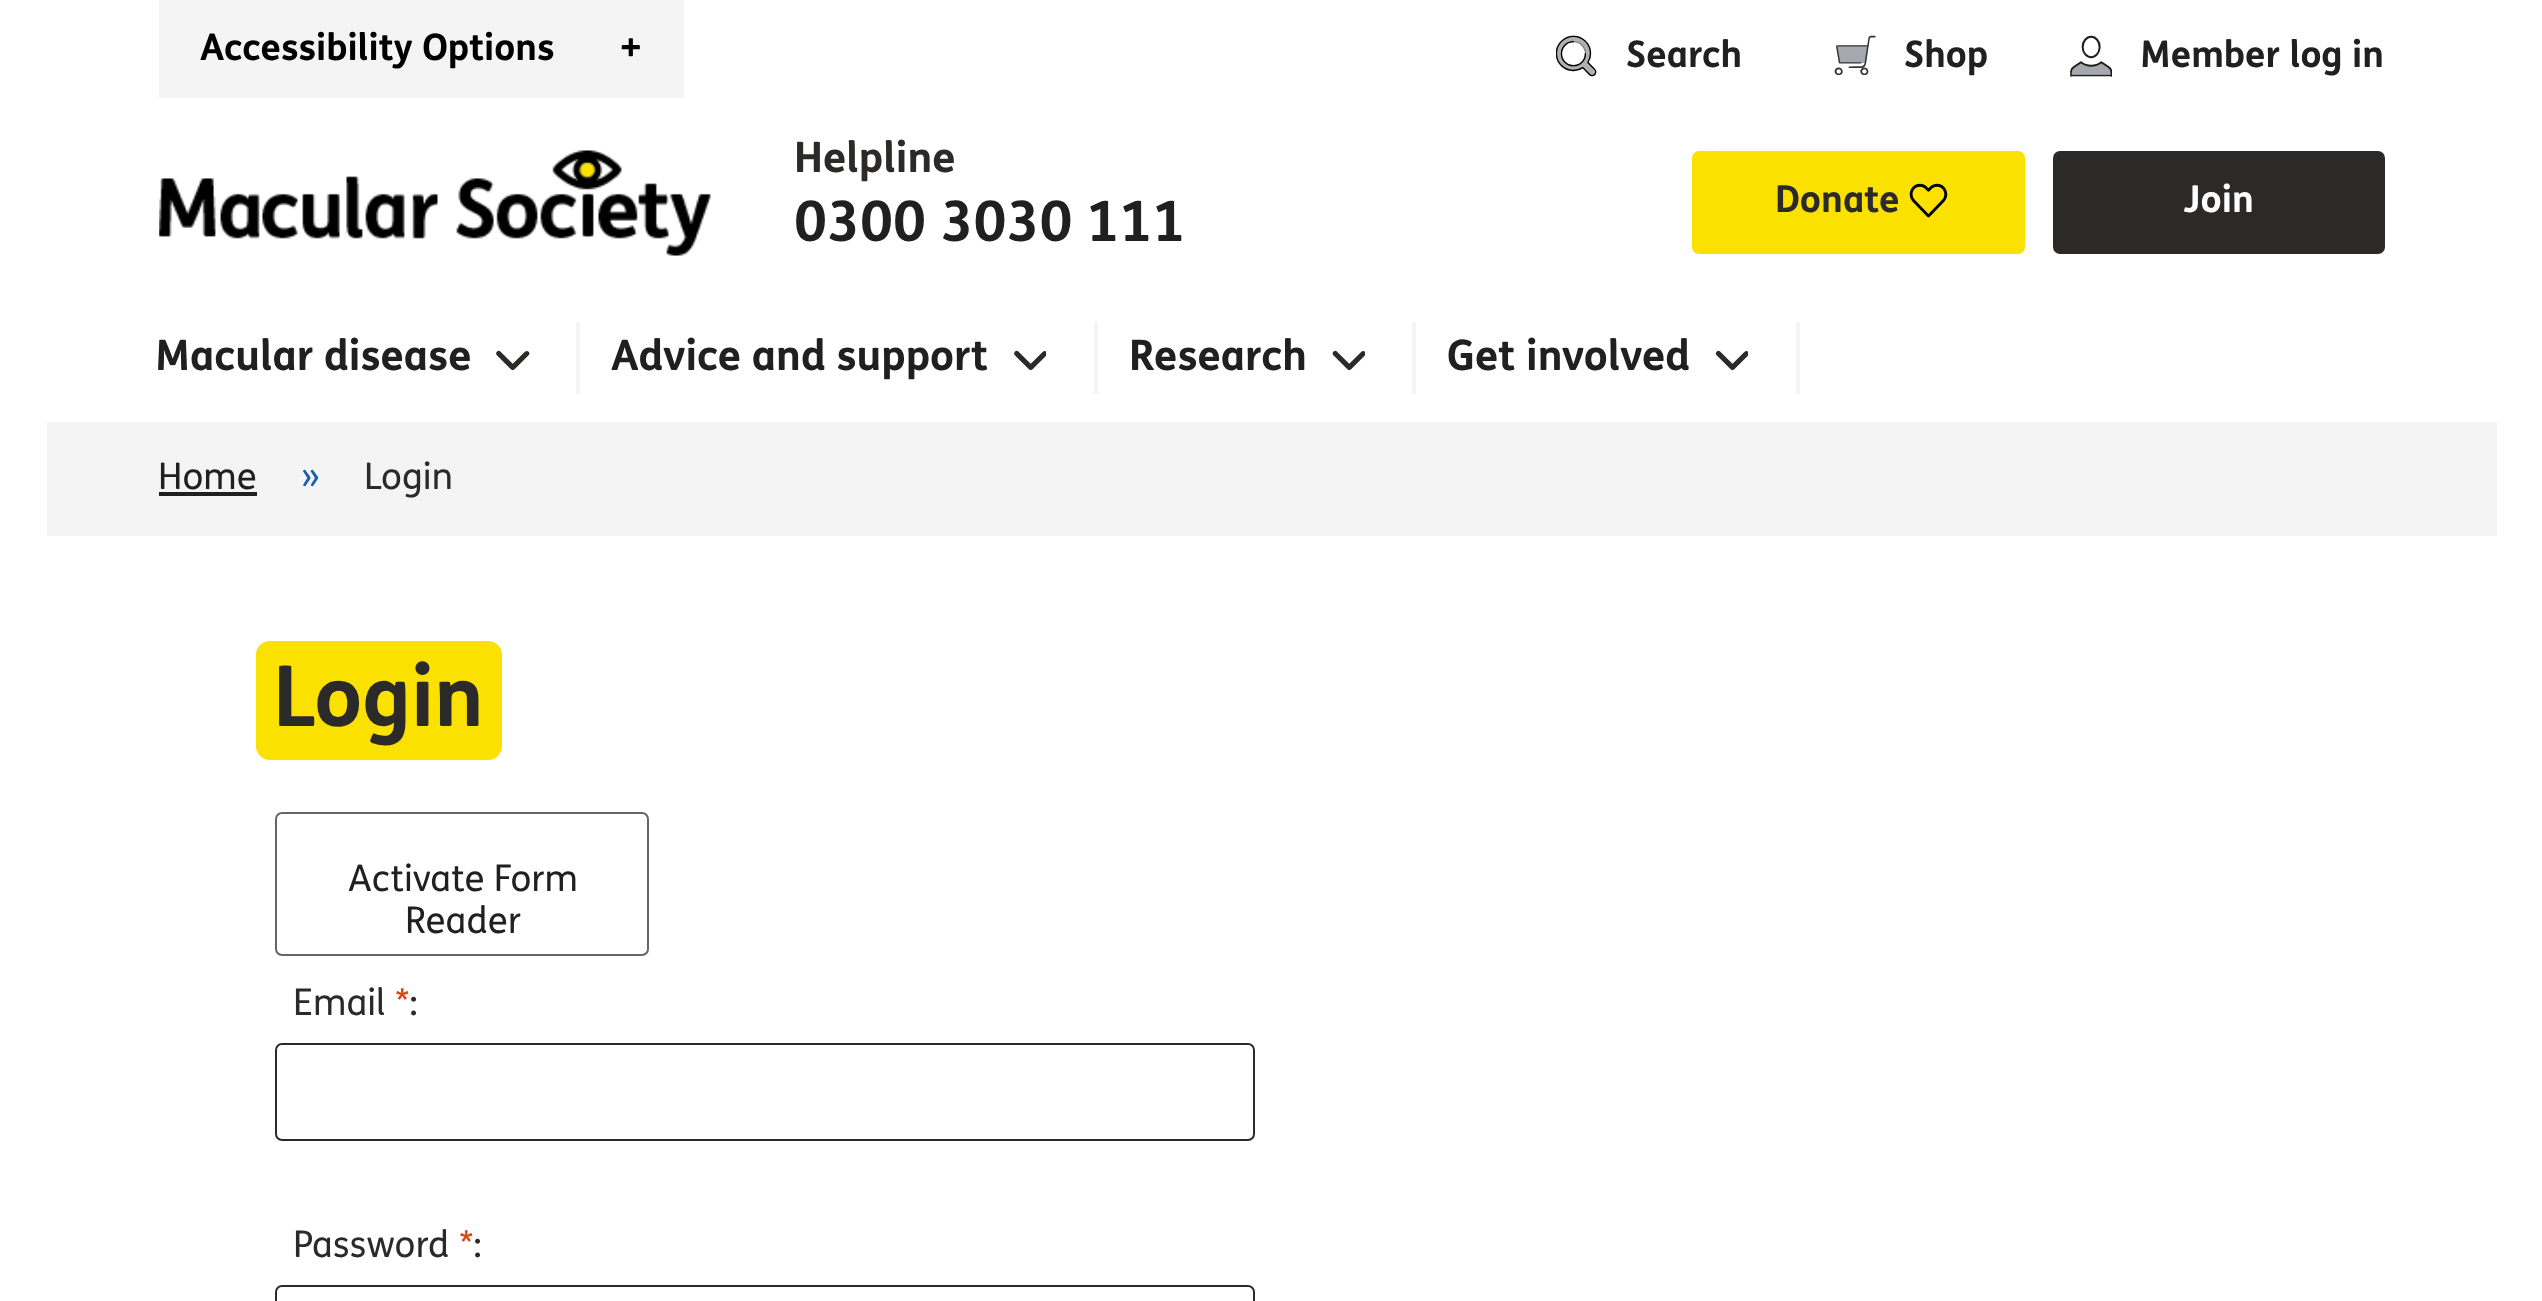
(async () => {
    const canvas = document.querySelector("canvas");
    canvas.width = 2542;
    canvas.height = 1301;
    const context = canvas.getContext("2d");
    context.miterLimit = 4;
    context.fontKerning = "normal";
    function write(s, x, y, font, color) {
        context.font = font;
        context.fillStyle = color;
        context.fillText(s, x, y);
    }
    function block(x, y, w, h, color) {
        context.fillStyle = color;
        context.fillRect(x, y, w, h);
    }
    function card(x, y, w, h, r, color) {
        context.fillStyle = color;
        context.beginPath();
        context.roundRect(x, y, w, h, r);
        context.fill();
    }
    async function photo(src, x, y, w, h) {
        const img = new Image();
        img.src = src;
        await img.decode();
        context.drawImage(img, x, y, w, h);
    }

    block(0, 0, 2542, 1301, "rgb(255, 255, 255)");
    block(159, 0, 525, 98, "rgb(244, 244, 244)");
    write("Accessibility Options", 200, 60, "bold 36.75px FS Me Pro", "rgb(0, 0, 0)");
    write("+", 620, 60, "bold 36.75px FS Me Pro", "rgb(0, 0, 0)");
    await photo("media/1.png", 1556, 35, 41, 42);
    write("Search", 1626, 67, "bold 36.75px FS Me Pro", "rgb(32, 32, 32)");
    await photo("media/2.png", 1834, 35, 42, 40);
    write("Shop", 1904, 67, "bold 36.75px FS Me Pro", "rgb(32, 32, 32)");
    await photo("media/3.png", 2070, 35, 42, 42);
    write("Member log in", 2140, 67, "bold 36.75px FS Me Pro", "rgb(32, 32, 32)");
    await photo("media/4.png", 159, 150, 552, 106);
    write("Helpline", 794, 172, "bold 42px FS Me Pro", "rgb(44, 42, 41)");
    write("0300 3030 111", 794, 241, "bold 56px FS Me Pro", "rgb(32, 32, 32)");
    card(1692, 151, 333, 103, 7, "rgb(250, 225, 0)");
    write("Donate", 1775, 212, "bold 37px FS Me Pro", "rgb(44, 42, 41)");
    await photo("media/5.png", 1909, 183, 39, 35);
    card(2053, 151, 332, 103, 7, "rgb(44, 42, 41)");
    write("Join", 2183, 212, "bold 37px FS Me Pro", "rgb(255, 255, 255)");
    block(576, 322, 4, 72, "rgb(244, 244, 244)");
    write("Macular disease", 155, 370, "bold 42px FS Me Pro", "rgb(32, 32, 32)");
    await photo("media/6.png", 496, 350, 34, 21);
    block(1094, 322, 4, 72, "rgb(244, 244, 244)");
    write("Advice and support", 611, 370, "bold 42px FS Me Pro", "rgb(32, 32, 32)");
    await photo("media/7.png", 1014, 350, 32, 21);
    block(1412, 322, 4, 72, "rgb(244, 244, 244)");
    write("Research", 1129, 370, "bold 42px FS Me Pro", "rgb(32, 32, 32)");
    await photo("media/8.png", 1332, 350, 33, 21);
    block(1796, 322, 4, 72, "rgb(244, 244, 244)");
    write("Get involved", 1447, 370, "bold 42px FS Me Pro", "rgb(32, 32, 32)");
    await photo("media/9.png", 1715, 350, 33, 21);
    block(47, 422, 2450, 114, "rgb(244, 244, 244)");
    write("Home", 158, 489, "36.75px FS Me Pro", "rgb(32, 32, 32)");
    block(159, 492, 98, 4, "rgb(32, 32, 32)");
    write("»", 301, 489, "36.75px FS Me Pro", "rgb(27, 95, 170)");
    write("Login", 364, 489, "36.75px FS Me Pro", "rgb(44, 42, 41)");
    card(256, 641, 246, 119, 14, "rgb(250, 225, 0)");
    write("Login", 273, 726, "bold 84px FS Me Pro", "rgb(44, 42, 41)");
    context.beginPath();
    context.roundRect(276, 813, 372, 142, 6);
    context.strokeStyle = "rgb(102, 102, 102)";
    context.lineWidth = 2;
    context.stroke();
    write("Activate Form", 348, 891, "36.75px FS Me Pro", "rgb(32, 32, 32)");
    write("Reader", 405, 933, "36.75px FS Me Pro", "rgb(32, 32, 32)");
    write("Email", 293, 1015, "36.75px FS Me Pro", "rgb(44, 42, 41)");
    write("*", 395, 1015, "36.75px FS Me Pro", "rgb(214, 74, 26)");
    write(":", 409, 1015, "36.75px FS Me Pro", "rgb(44, 42, 41)");
    context.beginPath();
    context.roundRect(276, 1044, 978, 96, 6);
    context.strokeStyle = "rgb(44, 42, 41)";
    context.stroke();
    write("Password", 293, 1257, "36.75px FS Me Pro", "rgb(44, 42, 41)");
    write("*", 459, 1257, "36.75px FS Me Pro", "rgb(214, 74, 26)");
    write(":", 473, 1257, "36.75px FS Me Pro", "rgb(44, 42, 41)");
    context.beginPath();
    context.roundRect(276, 1286, 978, 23, 6);
    context.stroke();
})();
